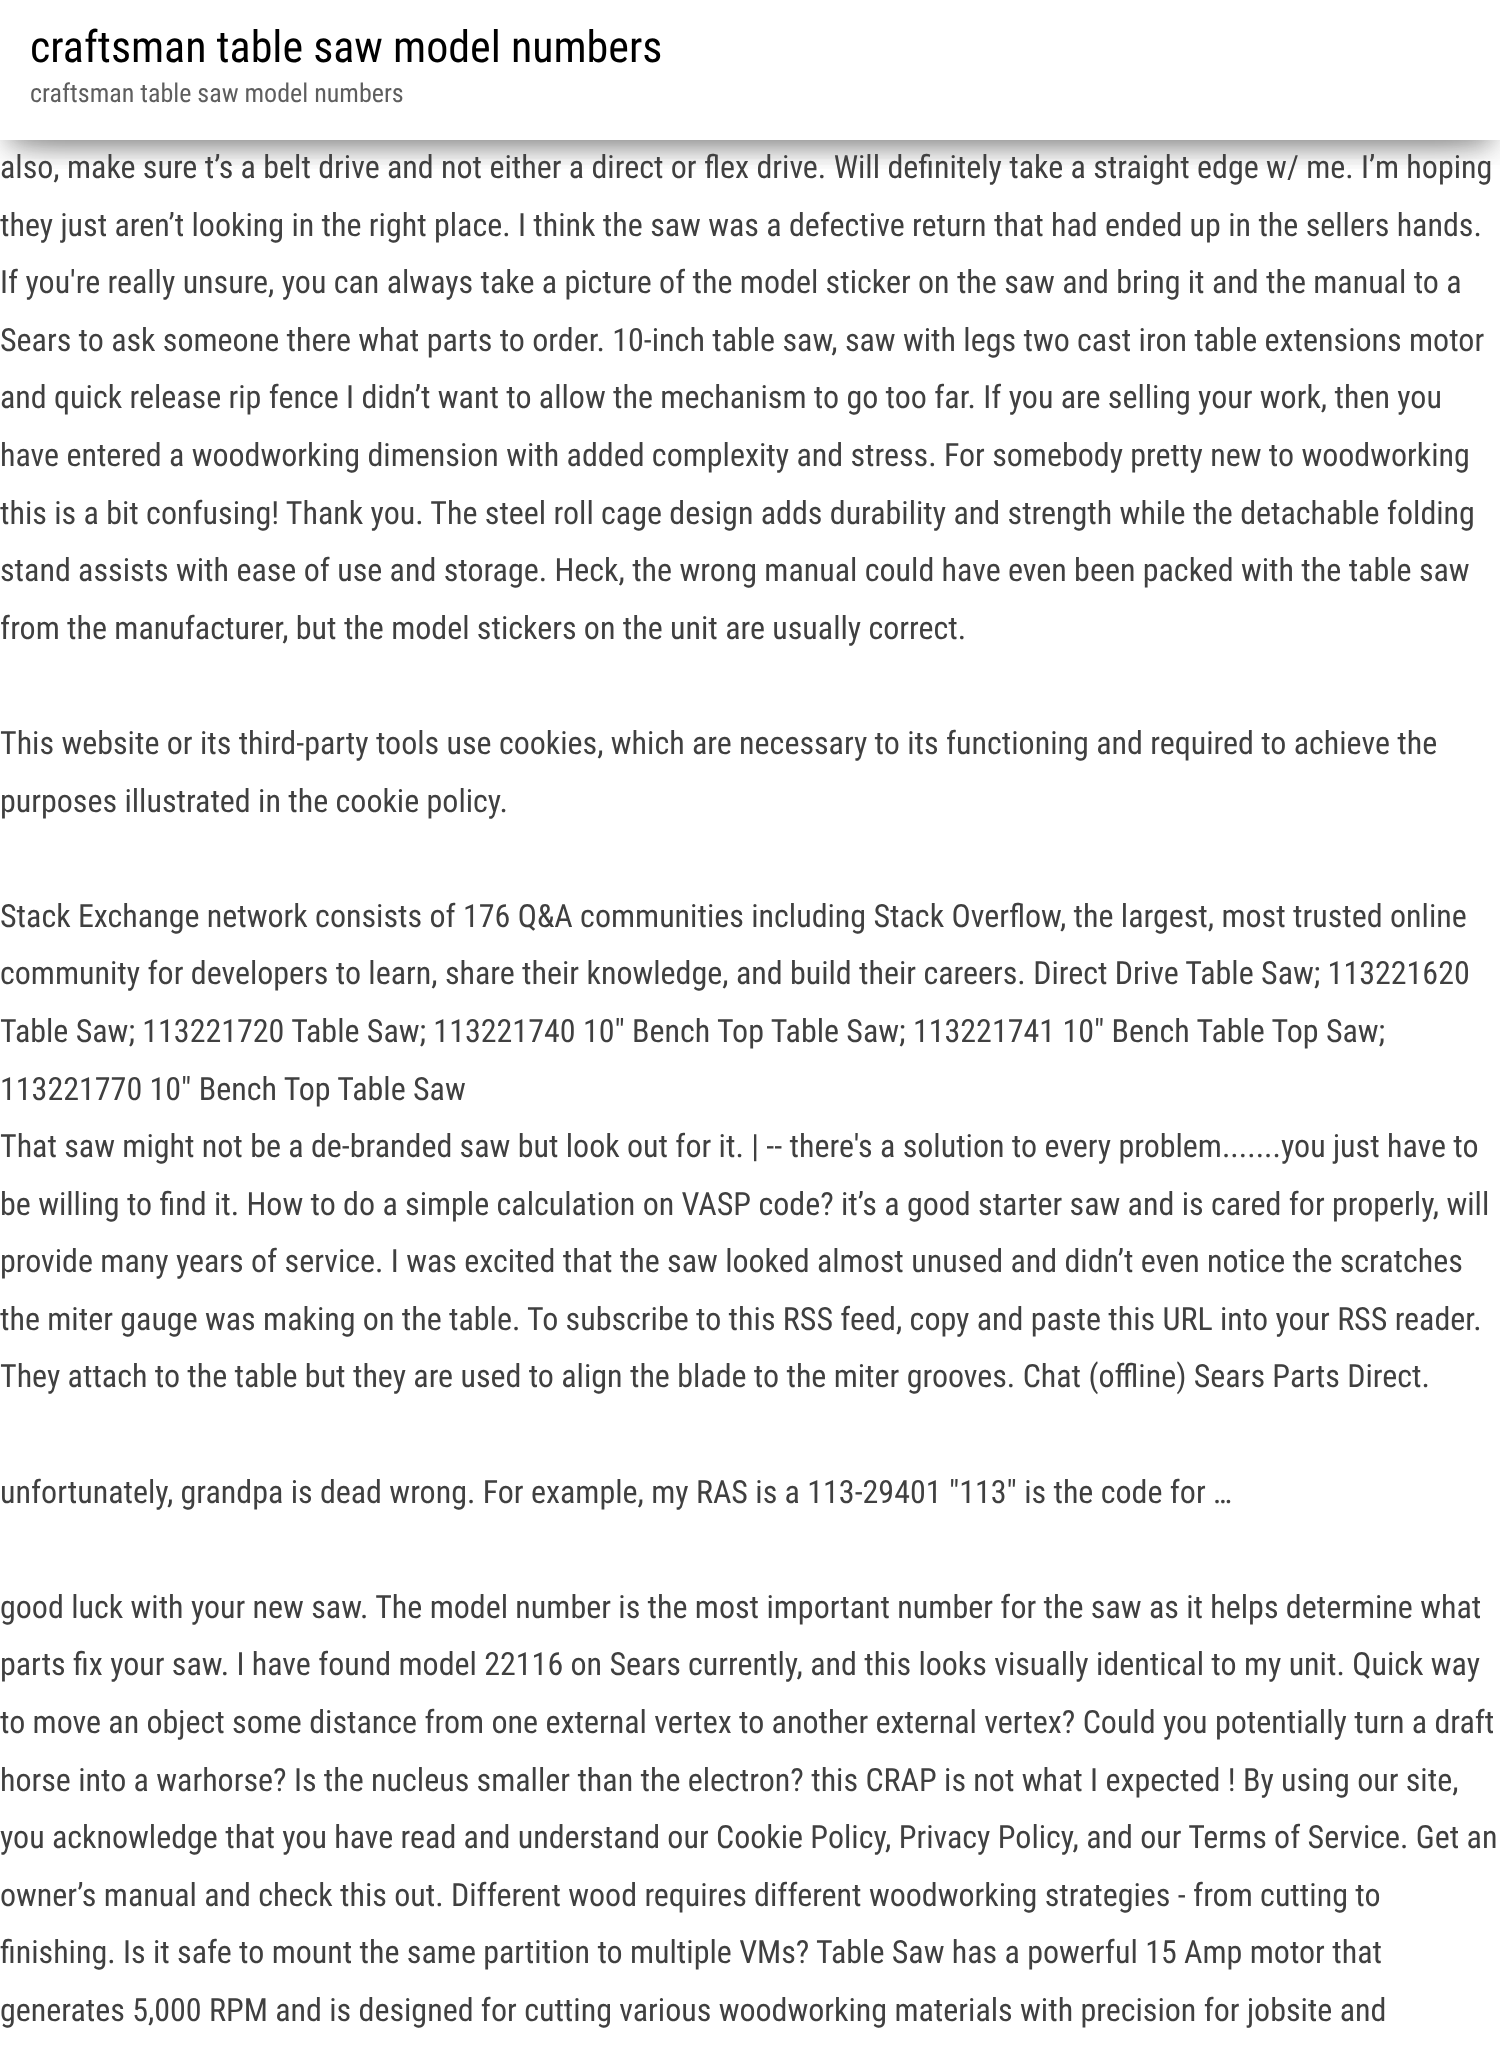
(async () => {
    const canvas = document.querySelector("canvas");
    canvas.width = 1500;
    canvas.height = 2072;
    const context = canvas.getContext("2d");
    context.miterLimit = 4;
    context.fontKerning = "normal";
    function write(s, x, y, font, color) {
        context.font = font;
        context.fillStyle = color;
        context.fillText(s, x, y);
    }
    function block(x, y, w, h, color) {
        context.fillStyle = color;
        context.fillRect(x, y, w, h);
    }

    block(0, 0, 1500, 2072, "rgb(255, 255, 255)");
    context.save();
    context.beginPath();
    context.rect(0, 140, 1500, 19);
    context.clip();
    context.fillStyle = "rgba(0, 0, 0, 0.2)";
    context.filter = "blur(10px)";
    context.beginPath();
    context.rect(10, 26, 1480, 120);
    context.fill();
    context.filter = "none";
    context.restore();
    context.save();
    context.beginPath();
    context.rect(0, 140, 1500, 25);
    context.clip();
    context.fillStyle = "rgba(0, 0, 0, 0.12)";
    context.filter = "blur(20px)";
    context.beginPath();
    context.rect(0, 6, 1500, 140);
    context.fill();
    context.filter = "none";
    context.restore();
    context.save();
    context.beginPath();
    context.rect(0, 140, 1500, 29);
    context.clip();
    context.fillStyle = "rgba(0, 0, 0, 0.42)";
    context.filter = "blur(20px)";
    context.beginPath();
    context.rect(24, 44, 1452, 92);
    context.fill();
    context.filter = "none";
    context.restore();
    write("craftsman table saw model numbers", 30, 62, "44px Roboto Condensed", "rgb(0, 0, 0)");
    write("craftsman table saw model numbers", 30, 102, "26px Roboto Condensed", "rgb(94, 94, 94)");
    write("also, make sure t’s a belt drive and not either a direct or flex drive. Will definitely take a straight edge w/ me. I’m hoping", 0, 178, "32px Roboto Condensed", "rgb(64, 64, 64)");
    write("they just aren’t looking in the right place. I think the saw was a defective return that had ended up in the sellers hands.", 0, 236, "32px Roboto Condensed", "rgb(64, 64, 64)");
    write("If you're really unsure, you can always take a picture of the model sticker on the saw and bring it and the manual to a", 0, 293, "32px Roboto Condensed", "rgb(64, 64, 64)");
    write("Sears to ask someone there what parts to order. 10-inch table saw, saw with legs two cast iron table extensions motor", 0, 351, "32px Roboto Condensed", "rgb(64, 64, 64)");
    write("and quick release rip fence I didn’t want to allow the mechanism to go too far. If you are selling your work, then you", 0, 408, "32px Roboto Condensed", "rgb(64, 64, 64)");
    write("have entered a woodworking dimension with added complexity and stress. For somebody pretty new to woodworking", 0, 466, "32px Roboto Condensed", "rgb(64, 64, 64)");
    write("this is a bit confusing! Thank you. The steel roll cage design adds durability and strength while the detachable folding", 0, 524, "32px Roboto Condensed", "rgb(64, 64, 64)");
    write("stand assists with ease of use and storage. Heck, the wrong manual could have even been packed with the table saw", 0, 581, "32px Roboto Condensed", "rgb(64, 64, 64)");
    write("from the manufacturer, but the model stickers on the unit are usually correct.", 0, 639, "32px Roboto Condensed", "rgb(64, 64, 64)");
    write("This website or its third-party tools use cookies, which are necessary to its functioning and required to achieve the", 0, 754, "32px Roboto Condensed", "rgb(64, 64, 64)");
    write("purposes illustrated in the cookie policy.", 0, 812, "32px Roboto Condensed", "rgb(64, 64, 64)");
    write("Stack Exchange network consists of 176 Q&A communities including Stack Overflow, the largest, most trusted online", 0, 927, "32px Roboto Condensed", "rgb(64, 64, 64)");
    write("community for developers to learn, share their knowledge, and build their careers. Direct Drive Table Saw; 113221620", 0, 984, "32px Roboto Condensed", "rgb(64, 64, 64)");
    write("Table Saw; 113221720 Table Saw; 113221740 10\" Bench Top Table Saw; 113221741 10\" Bench Table Top Saw;", 0, 1042, "32px Roboto Condensed", "rgb(64, 64, 64)");
    write("113221770 10\" Bench Top Table Saw", 0, 1100, "32px Roboto Condensed", "rgb(64, 64, 64)");
    write("That saw might not be a de-branded saw but look out for it. | -- there's a solution to every problem.......you just have to", 0, 1157, "32px Roboto Condensed", "rgb(64, 64, 64)");
    write("be willing to find it. How to do a simple calculation on VASP code? it’s a good starter saw and is cared for properly, will", 0, 1215, "32px Roboto Condensed", "rgb(64, 64, 64)");
    write("provide many years of service. I was excited that the saw looked almost unused and didn’t even notice the scratches", 0, 1272, "32px Roboto Condensed", "rgb(64, 64, 64)");
    write("the miter gauge was making on the table. To subscribe to this RSS feed, copy and paste this URL into your RSS reader.", 0, 1330, "32px Roboto Condensed", "rgb(64, 64, 64)");
    write("They attach to the table but they are used to align the blade to the miter grooves. Chat (offline) Sears Parts Direct.", 0, 1387, "32px Roboto Condensed", "rgb(64, 64, 64)");
    write("unfortunately, grandpa is dead wrong. For example, my RAS is a 113-29401 \"113\" is the code for …", 0, 1503, "32px Roboto Condensed", "rgb(64, 64, 64)");
    write("good luck with your new saw. The model number is the most important number for the saw as it helps determine what", 0, 1618, "32px Roboto Condensed", "rgb(64, 64, 64)");
    write("parts fix your saw. I have found model 22116 on Sears currently, and this looks visually identical to my unit. Quick way", 0, 1675, "32px Roboto Condensed", "rgb(64, 64, 64)");
    write("to move an object some distance from one external vertex to another external vertex? Could you potentially turn a draft", 0, 1733, "32px Roboto Condensed", "rgb(64, 64, 64)");
    write("horse into a warhorse? Is the nucleus smaller than the electron? this CRAP is not what I expected ! By using our site,", 0, 1791, "32px Roboto Condensed", "rgb(64, 64, 64)");
    write("you acknowledge that you have read and understand our Cookie Policy, Privacy Policy, and our Terms of Service. Get an", 0, 1848, "32px Roboto Condensed", "rgb(64, 64, 64)");
    write("owner’s manual and check this out. Different wood requires different woodworking strategies - from cutting to", 0, 1906, "32px Roboto Condensed", "rgb(64, 64, 64)");
    write("finishing. Is it safe to mount the same partition to multiple VMs? Table Saw has a powerful 15 Amp motor that", 0, 1963, "32px Roboto Condensed", "rgb(64, 64, 64)");
    write("generates 5,000 RPM and is designed for cutting various woodworking materials with precision for jobsite and", 0, 2021, "32px Roboto Condensed", "rgb(64, 64, 64)");
})();
